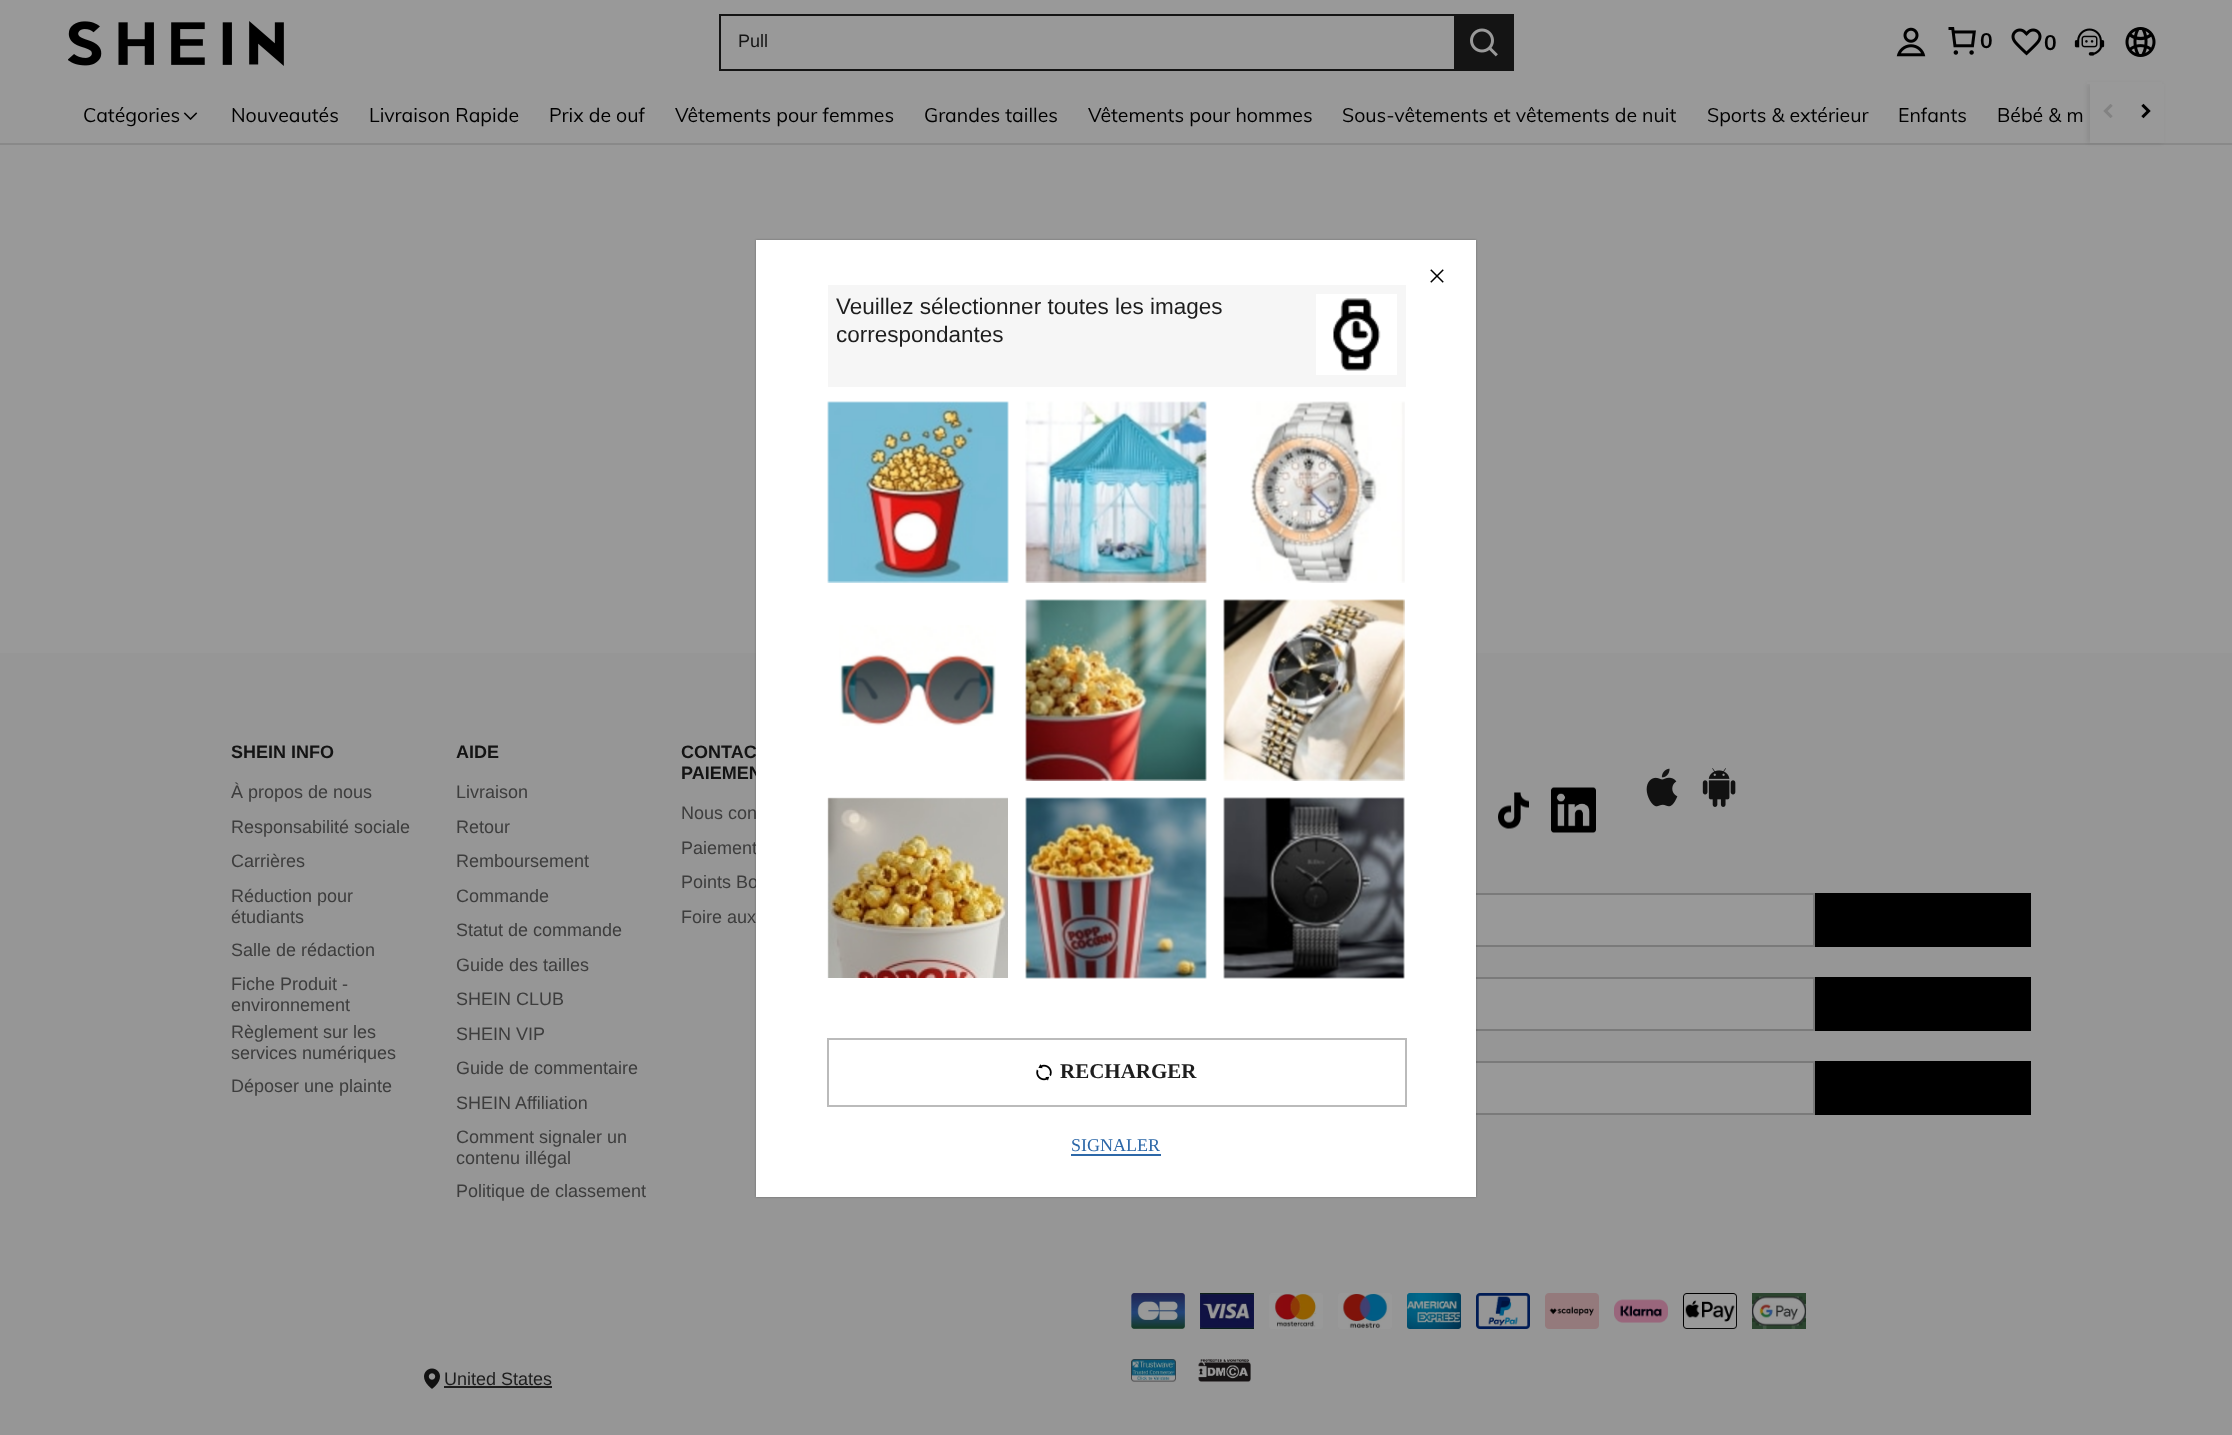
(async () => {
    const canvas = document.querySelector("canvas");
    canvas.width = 2232;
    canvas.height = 1435;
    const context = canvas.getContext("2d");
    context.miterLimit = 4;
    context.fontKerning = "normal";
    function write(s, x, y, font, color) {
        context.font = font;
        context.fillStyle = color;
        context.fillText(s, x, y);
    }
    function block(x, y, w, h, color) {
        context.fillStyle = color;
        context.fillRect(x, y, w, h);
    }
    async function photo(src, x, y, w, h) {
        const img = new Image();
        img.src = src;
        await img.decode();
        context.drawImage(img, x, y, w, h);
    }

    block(0, 0, 2232, 1435, "rgb(153, 153, 153)");
    block(0, 143, 2232, 2, "rgb(137, 137, 137)");
    context.fillStyle = "rgba(0, 0, 0, 0.08)";
    context.filter = "blur(2px)";
    context.beginPath();
    context.rect(2087, 84, 75, 59);
    context.fill();
    context.filter = "none";
    block(2087, 82, 75, 2, "rgb(153, 153, 153)");
    await photo("media/1.png", 68, 21, 216, 45);
    block(719, 14, 735, 2, "rgb(20, 20, 20)");
    block(719, 69, 735, 2, "rgb(20, 20, 20)");
    block(719, 14, 2, 57, "rgb(20, 20, 20)");
    write("Pull", 738, 47, "18px Liberation Sans", "rgb(20, 20, 20)");
    block(1454, 14, 60, 57, "rgb(20, 20, 20)");
    await photo("media/2.png", 1470, 28, 28, 29);
    await photo("media/3.png", 1896, 27, 30, 30);
    await photo("media/4.png", 1948, 27, 28, 28);
    write("0", 1980, 48, "bold 21px Muli", "rgb(0, 0, 0)");
    await photo("media/5.png", 2011, 28, 31, 28);
    write("0", 2044, 50, "bold 21px Muli", "rgb(0, 0, 0)");
    await photo("media/6.png", 2074, 28, 31, 28);
    await photo("media/7.png", 2125, 27, 31, 30);
    write("Catégories", 83, 122, "19.5px Muli", "rgb(0, 0, 0)");
    await photo("media/8.png", 183, 112, 15, 8);
    write("Nouveautés", 231, 122, "19.5px Muli", "rgb(0, 0, 0)");
    write("Livraison Rapide", 369, 122, "19.5px Muli", "rgb(0, 0, 0)");
    write("Prix de ouf", 549, 122, "19.5px Muli", "rgb(0, 0, 0)");
    write("Vêtements pour femmes", 675, 122, "19.5px Muli", "rgb(0, 0, 0)");
    write("Grandes tailles", 924, 122, "19.5px Muli", "rgb(0, 0, 0)");
    write("Vêtements pour hommes", 1088, 122, "19.5px Muli", "rgb(0, 0, 0)");
    write("Sous-vêtements et vêtements de nuit", 1342, 122, "19.5px Muli", "rgb(0, 0, 0)");
    write("Sports & extérieur", 1707, 122, "19.5px Muli", "rgb(0, 0, 0)");
    write("Enfants", 1898, 122, "19.5px Muli", "rgb(0, 0, 0)");
    write("Bébé & m", 1997, 122, "19.5px Muli", "rgb(0, 0, 0)");
    block(2090, 84, 74, 59, "rgb(153, 153, 153)");
    await photo("media/9.png", 2103, 104, 10, 14);
    await photo("media/10.png", 2141, 103, 10, 16);
    block(0, 653, 2232, 782, "rgb(150, 150, 150)");
    write("SHEIN INFO", 231, 758, "bold 18px Liberation Sans", "rgb(20, 20, 20)");
    write("À propos de nous", 231, 798, "18px Liberation Sans", "rgb(61, 61, 61)");
    write("Responsabilité sociale", 231, 833, "18px Liberation Sans", "rgb(61, 61, 61)");
    write("Carrières", 231, 867, "18px Liberation Sans", "rgb(61, 61, 61)");
    write("Réduction pour", 231, 902, "18px Liberation Sans", "rgb(61, 61, 61)");
    write("étudiants", 231, 923, "18px Liberation Sans", "rgb(61, 61, 61)");
    write("Salle de rédaction", 231, 956, "18px Liberation Sans", "rgb(61, 61, 61)");
    write("Fiche Produit -", 231, 990, "18px Liberation Sans", "rgb(61, 61, 61)");
    write("environnement", 231, 1011, "18px Liberation Sans", "rgb(61, 61, 61)");
    write("Règlement sur les", 231, 1038, "18px Liberation Sans", "rgb(61, 61, 61)");
    write("services numériques", 231, 1059, "18px Liberation Sans", "rgb(61, 61, 61)");
    write("Déposer une plainte", 231, 1092, "18px Liberation Sans", "rgb(61, 61, 61)");
    write("AIDE", 456, 758, "bold 18px Liberation Sans", "rgb(20, 20, 20)");
    write("Livraison", 456, 798, "18px Liberation Sans", "rgb(61, 61, 61)");
    write("Retour", 456, 833, "18px Liberation Sans", "rgb(61, 61, 61)");
    write("Remboursement", 456, 867, "18px Liberation Sans", "rgb(61, 61, 61)");
    write("Commande", 456, 902, "18px Liberation Sans", "rgb(61, 61, 61)");
    write("Statut de commande", 456, 936, "18px Liberation Sans", "rgb(61, 61, 61)");
    write("Guide des tailles", 456, 971, "18px Liberation Sans", "rgb(61, 61, 61)");
    write("SHEIN CLUB", 456, 1005, "18px Liberation Sans", "rgb(61, 61, 61)");
    write("SHEIN VIP", 456, 1040, "18px Liberation Sans", "rgb(61, 61, 61)");
    write("Guide de commentaire", 456, 1074, "18px Liberation Sans", "rgb(61, 61, 61)");
    write("SHEIN Affiliation", 456, 1109, "18px Liberation Sans", "rgb(61, 61, 61)");
    write("Comment signaler un", 456, 1143, "18px Liberation Sans", "rgb(61, 61, 61)");
    write("contenu illégal", 456, 1164, "18px Liberation Sans", "rgb(61, 61, 61)");
    write("Politique de classement", 456, 1197, "18px Liberation Sans", "rgb(61, 61, 61)");
    write("CONTAC", 681, 758, "bold 18px Liberation Sans", "rgb(20, 20, 20)");
    write("PAIEMEN", 681, 779, "bold 18px Liberation Sans", "rgb(20, 20, 20)");
    write("Nous con", 681, 819, "18px Liberation Sans", "rgb(61, 61, 61)");
    write("Paiement", 681, 854, "18px Liberation Sans", "rgb(61, 61, 61)");
    write("Points Bo", 681, 888, "18px Liberation Sans", "rgb(61, 61, 61)");
    write("Foire aux", 681, 923, "18px Liberation Sans", "rgb(61, 61, 61)");
    await photo("media/11.png", 1498, 792, 31, 37);
    await photo("media/12.png", 1551, 787, 45, 46);
    await photo("media/13.png", 1646, 768, 32, 39);
    await photo("media/14.png", 1702, 768, 34, 39);
    block(1476, 895, 337, 50, "rgb(153, 153, 153)");
    context.strokeStyle = "rgb(122, 122, 122)";
    context.lineWidth = 2;
    context.strokeRect(1132, 894, 682, 52);
    block(1815, 893, 216, 54, "rgb(0, 0, 0)");
    block(1476, 979, 337, 50, "rgb(153, 153, 153)");
    context.strokeRect(1252, 978, 562, 52);
    block(1815, 977, 216, 54, "rgb(0, 0, 0)");
    block(1476, 1063, 337, 50, "rgb(153, 153, 153)");
    context.strokeRect(1252, 1062, 562, 52);
    block(1815, 1061, 216, 54, "rgb(0, 0, 0)");
    await photo("media/15.png", 1131, 1293, 54, 36);
    await photo("media/16.png", 1200, 1293, 54, 36);
    await photo("media/17.png", 1269, 1293, 54, 36);
    await photo("media/18.png", 1338, 1293, 54, 36);
    await photo("media/19.png", 1407, 1293, 54, 36);
    await photo("media/20.png", 1476, 1293, 54, 36);
    await photo("media/21.png", 1545, 1293, 54, 36);
    await photo("media/22.png", 1614, 1299, 54, 24);
    await photo("media/23.png", 1683, 1293, 54, 36);
    await photo("media/24.png", 1752, 1293, 54, 36);
    await photo("media/25.png", 424, 1368, 16, 21);
    write("United States", 444, 1385, "18px Liberation Sans", "rgb(30, 30, 30)");
    block(444, 1386, 108, 2, "rgb(30, 30, 30)");
    await photo("media/26.png", 1131, 1359, 45, 23);
    await photo("media/27.png", 1198, 1359, 53, 23);
    context.fillStyle = "rgba(0, 0, 0, 0.3)";
    context.filter = "blur(1px)";
    context.beginPath();
    context.rect(756, 240, 720, 957);
    context.fill();
    context.filter = "none";
    block(756, 240, 720, 957, "rgb(255, 255, 255)");
    await photo("media/28.png", 1430, 269, 14, 14);
    block(828, 285, 578, 102, "rgb(246, 246, 246)");
    write("Veuillez sélectionner toutes les images", 836, 314, "22.5px Liberation Sans", "rgb(30, 30, 30)");
    write("correspondantes", 836, 342, "22.5px Liberation Sans", "rgb(30, 30, 30)");
    block(1316, 294, 81, 81, "rgb(255, 255, 255)");
    await photo("media/29.png", 1333, 298, 48, 73);
    await photo("media/30.png", 827, 401, 182, 182);
    await photo("media/31.png", 1025, 401, 182, 182);
    await photo("media/32.png", 1250, 401, 155, 182);
    await photo("media/33.png", 839, 625, 157, 101);
    await photo("media/34.png", 1025, 599, 182, 182);
    await photo("media/35.png", 1223, 599, 182, 182);
    await photo("media/36.png", 827, 797, 181, 181);
    await photo("media/37.png", 1025, 797, 182, 182);
    await photo("media/38.png", 1223, 797, 182, 182);
    context.strokeStyle = "rgb(187, 187, 187)";
    context.strokeRect(828, 1039, 578, 67);
    await photo("media/39.png", 1036, 1064, 16, 17);
    write("RECHARGER", 1060, 1078, "bold 21px Liberation Serif", "rgb(30, 30, 30)");
    write("SIGNALER", 1071, 1151, "18px Liberation Serif", "rgb(45, 104, 168)");
    block(1071, 1154, 90, 2, "rgb(45, 104, 168)");
})();
